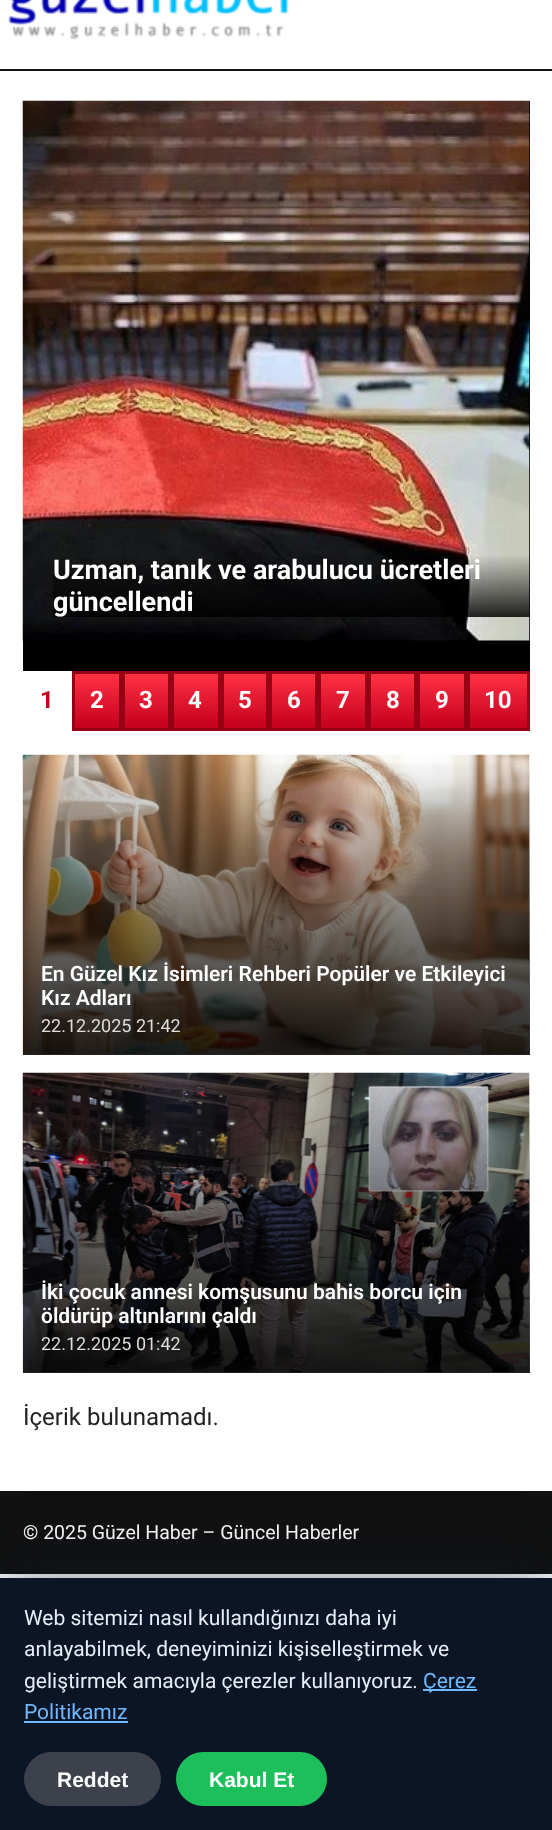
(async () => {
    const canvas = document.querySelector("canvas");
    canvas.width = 552;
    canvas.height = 1830;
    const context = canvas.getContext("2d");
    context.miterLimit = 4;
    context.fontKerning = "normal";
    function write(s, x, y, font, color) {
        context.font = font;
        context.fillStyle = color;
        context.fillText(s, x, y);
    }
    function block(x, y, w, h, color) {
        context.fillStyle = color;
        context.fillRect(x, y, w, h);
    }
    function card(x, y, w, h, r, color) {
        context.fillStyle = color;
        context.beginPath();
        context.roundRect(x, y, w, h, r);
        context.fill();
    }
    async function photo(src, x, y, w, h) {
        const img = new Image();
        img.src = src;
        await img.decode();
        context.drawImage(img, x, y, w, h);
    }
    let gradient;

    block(0, 0, 552, 1830, "rgb(255, 255, 255)");
    await photo("media/1.png", 8, 0, 281, 40);
    block(0, 69, 552, 2, "rgb(17, 17, 17)");
    block(23, 101, 507, 570, "rgb(0, 0, 0)");
    await photo("media/2.png", 22, 100, 508, 541);
    gradient = context.createLinearGradient(291, 617, 291, 554);
    gradient.addColorStop(0, "rgba(0, 0, 0, 0.85)");
    gradient.addColorStop(1, "rgba(0, 0, 0, 0)");
    context.fillStyle = gradient;
    context.fillRect(53, 556, 477, 61);
    write("Uzman, tanık ve arabulucu ücretleri", 53, 579, "bold 27px Roboto", "rgb(255, 255, 255)");
    write("güncellendi", 53, 611, "bold 27px Roboto", "rgb(255, 255, 255)");
    await photo("media/3.png", 22, 754, 508, 301);
    gradient = context.createLinearGradient(276, 1055, 276, 755);
    gradient.addColorStop(0, "rgba(0, 0, 0, 0.85)");
    gradient.addColorStop(1, "rgba(0, 0, 0, 0)");
    context.fillStyle = gradient;
    context.fillRect(23, 763, 507, 292);
    context.save();
    context.beginPath();
    context.rect(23, 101, 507, 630);
    context.clip();
    context.fillStyle = "rgba(0, 0, 0, 0.35)";
    context.filter = "blur(13.5px)";
    context.beginPath();
    context.rect(23, 662, 507, 60);
    context.fill();
    context.filter = "none";
    context.restore();
    block(23, 671, 49, 60, "rgb(255, 255, 255)");
    write("1", 40, 708, "bold 24px Roboto", "rgb(196, 0, 29)");
    gradient = context.createLinearGradient(97, 674, 97, 728);
    gradient.addColorStop(0, "rgb(255, 48, 67)");
    gradient.addColorStop(1, "rgb(196, 0, 29)");
    context.fillStyle = gradient;
    context.fillRect(75, 674, 44, 54);
    context.strokeStyle = "rgb(149, 0, 20)";
    context.lineWidth = 3;
    context.strokeRect(73.5, 672.5, 47, 57);
    write("2", 90, 708, "bold 24px Roboto", "rgb(255, 255, 255)");
    gradient = context.createLinearGradient(146, 674, 146, 728);
    gradient.addColorStop(0, "rgb(255, 48, 67)");
    gradient.addColorStop(1, "rgb(196, 0, 29)");
    context.fillStyle = gradient;
    context.fillRect(125, 674, 43, 54);
    context.strokeRect(123.5, 672.5, 46, 57);
    write("3", 139, 708, "bold 24px Roboto", "rgb(255, 255, 255)");
    gradient = context.createLinearGradient(196, 674, 196, 728);
    gradient.addColorStop(0, "rgb(255, 48, 67)");
    gradient.addColorStop(1, "rgb(196, 0, 29)");
    context.fillStyle = gradient;
    context.fillRect(174, 674, 44, 54);
    context.strokeRect(172.5, 672.5, 47, 57);
    write("4", 188, 708, "bold 24px Roboto", "rgb(255, 255, 255)");
    gradient = context.createLinearGradient(245, 674, 245, 728);
    gradient.addColorStop(0, "rgb(255, 48, 67)");
    gradient.addColorStop(1, "rgb(196, 0, 29)");
    context.fillStyle = gradient;
    context.fillRect(224, 674, 42, 54);
    context.strokeRect(222.5, 672.5, 45, 57);
    write("5", 238, 708, "bold 24px Roboto", "rgb(255, 255, 255)");
    gradient = context.createLinearGradient(293, 674, 293, 728);
    gradient.addColorStop(0, "rgb(255, 48, 67)");
    gradient.addColorStop(1, "rgb(196, 0, 29)");
    context.fillStyle = gradient;
    context.fillRect(272, 674, 43, 54);
    context.strokeRect(270.5, 672.5, 46, 57);
    write("6", 287, 708, "bold 24px Roboto", "rgb(255, 255, 255)");
    gradient = context.createLinearGradient(343, 674, 343, 728);
    gradient.addColorStop(0, "rgb(255, 48, 67)");
    gradient.addColorStop(1, "rgb(196, 0, 29)");
    context.fillStyle = gradient;
    context.fillRect(321, 674, 44, 54);
    context.strokeRect(319.5, 672.5, 47, 57);
    write("7", 336, 708, "bold 24px Roboto", "rgb(255, 255, 255)");
    gradient = context.createLinearGradient(392, 674, 392, 728);
    gradient.addColorStop(0, "rgb(255, 48, 67)");
    gradient.addColorStop(1, "rgb(196, 0, 29)");
    context.fillStyle = gradient;
    context.fillRect(371, 674, 43, 54);
    context.strokeRect(369.5, 672.5, 46, 57);
    write("8", 386, 708, "bold 24px Roboto", "rgb(255, 255, 255)");
    gradient = context.createLinearGradient(442, 674, 442, 728);
    gradient.addColorStop(0, "rgb(255, 48, 67)");
    gradient.addColorStop(1, "rgb(196, 0, 29)");
    context.fillStyle = gradient;
    context.fillRect(420, 674, 44, 54);
    context.strokeRect(418.5, 672.5, 47, 57);
    write("9", 435, 708, "bold 24px Roboto", "rgb(255, 255, 255)");
    gradient = context.createLinearGradient(498, 674, 498, 728);
    gradient.addColorStop(0, "rgb(255, 48, 67)");
    gradient.addColorStop(1, "rgb(196, 0, 29)");
    context.fillStyle = gradient;
    context.fillRect(470, 674, 57, 54);
    context.strokeRect(468.5, 672.5, 60, 57);
    write("10", 484, 708, "bold 24px Roboto", "rgb(255, 255, 255)");
    write("En Güzel Kız İsimleri Rehberi Popüler ve Etkileyici", 41, 981, "600 21px Roboto", "rgb(255, 255, 255)");
    write("Kız Adları", 41, 1005, "600 21px Roboto", "rgb(255, 255, 255)");
    write("22.12.2025 21:42", 41, 1032, "18px Roboto", "rgb(223, 222, 221)");
    await photo("media/4.png", 22, 1072, 508, 301);
    gradient = context.createLinearGradient(276, 1373, 276, 1073);
    gradient.addColorStop(0, "rgba(0, 0, 0, 0.85)");
    gradient.addColorStop(1, "rgba(0, 0, 0, 0)");
    context.fillStyle = gradient;
    context.fillRect(23, 1081, 507, 292);
    write("İki çocuk annesi komşusunu bahis borcu için", 41, 1299, "600 21px Roboto", "rgb(255, 255, 255)");
    write("öldürüp altınlarını çaldı", 41, 1323, "600 21px Roboto", "rgb(255, 255, 255)");
    write("22.12.2025 01:42", 41, 1350, "18px Roboto", "rgb(223, 222, 221)");
    write("İçerik bulunamadı.", 23, 1425, "24px Roboto", "rgb(34, 34, 34)");
    block(0, 1491, 552, 83, "rgb(17, 17, 17)");
    write("© 2025 Güzel Haber – Güncel Haberler", 23, 1539, "19.5px Roboto", "rgb(255, 255, 255)");
    context.fillStyle = "rgba(12, 21, 34, 0.35)";
    context.filter = "blur(30px)";
    context.beginPath();
    context.rect(0, 1560, 552, 252);
    context.fill();
    context.filter = "none";
    block(0, 1578, 552, 252, "rgb(11, 21, 38)");
    write("Web sitemizi nasıl kullandığınızı daha iyi", 24, 1625, "21px Roboto", "rgb(231, 236, 246)");
    write("anlayabilmek, deneyiminizi kişiselleştirmek ve", 24, 1656, "21px Roboto", "rgb(231, 236, 246)");
    write("geliştirmek amacıyla çerezler kullanıyoruz.", 24, 1688, "21px Roboto", "rgb(231, 236, 246)");
    block(423, 1689, 54, 2, "rgb(111, 185, 255)");
    write("Çerez", 423, 1688, "21px Roboto", "rgb(111, 185, 255)");
    write("Politikamız", 24, 1719, "21px Roboto", "rgb(111, 185, 255)");
    block(24, 1721, 104, 2, "rgb(111, 185, 255)");
    card(24, 1752, 137, 54, 27, "rgb(60, 65, 75)");
    write("Reddet", 57, 1787, "bold 21px Liberation Sans", "rgb(255, 255, 255)");
    card(176, 1752, 151, 54, 27, "rgb(29, 191, 91)");
    write("Kabul Et", 209, 1787, "bold 21px Liberation Sans", "rgb(255, 255, 255)");
})();
